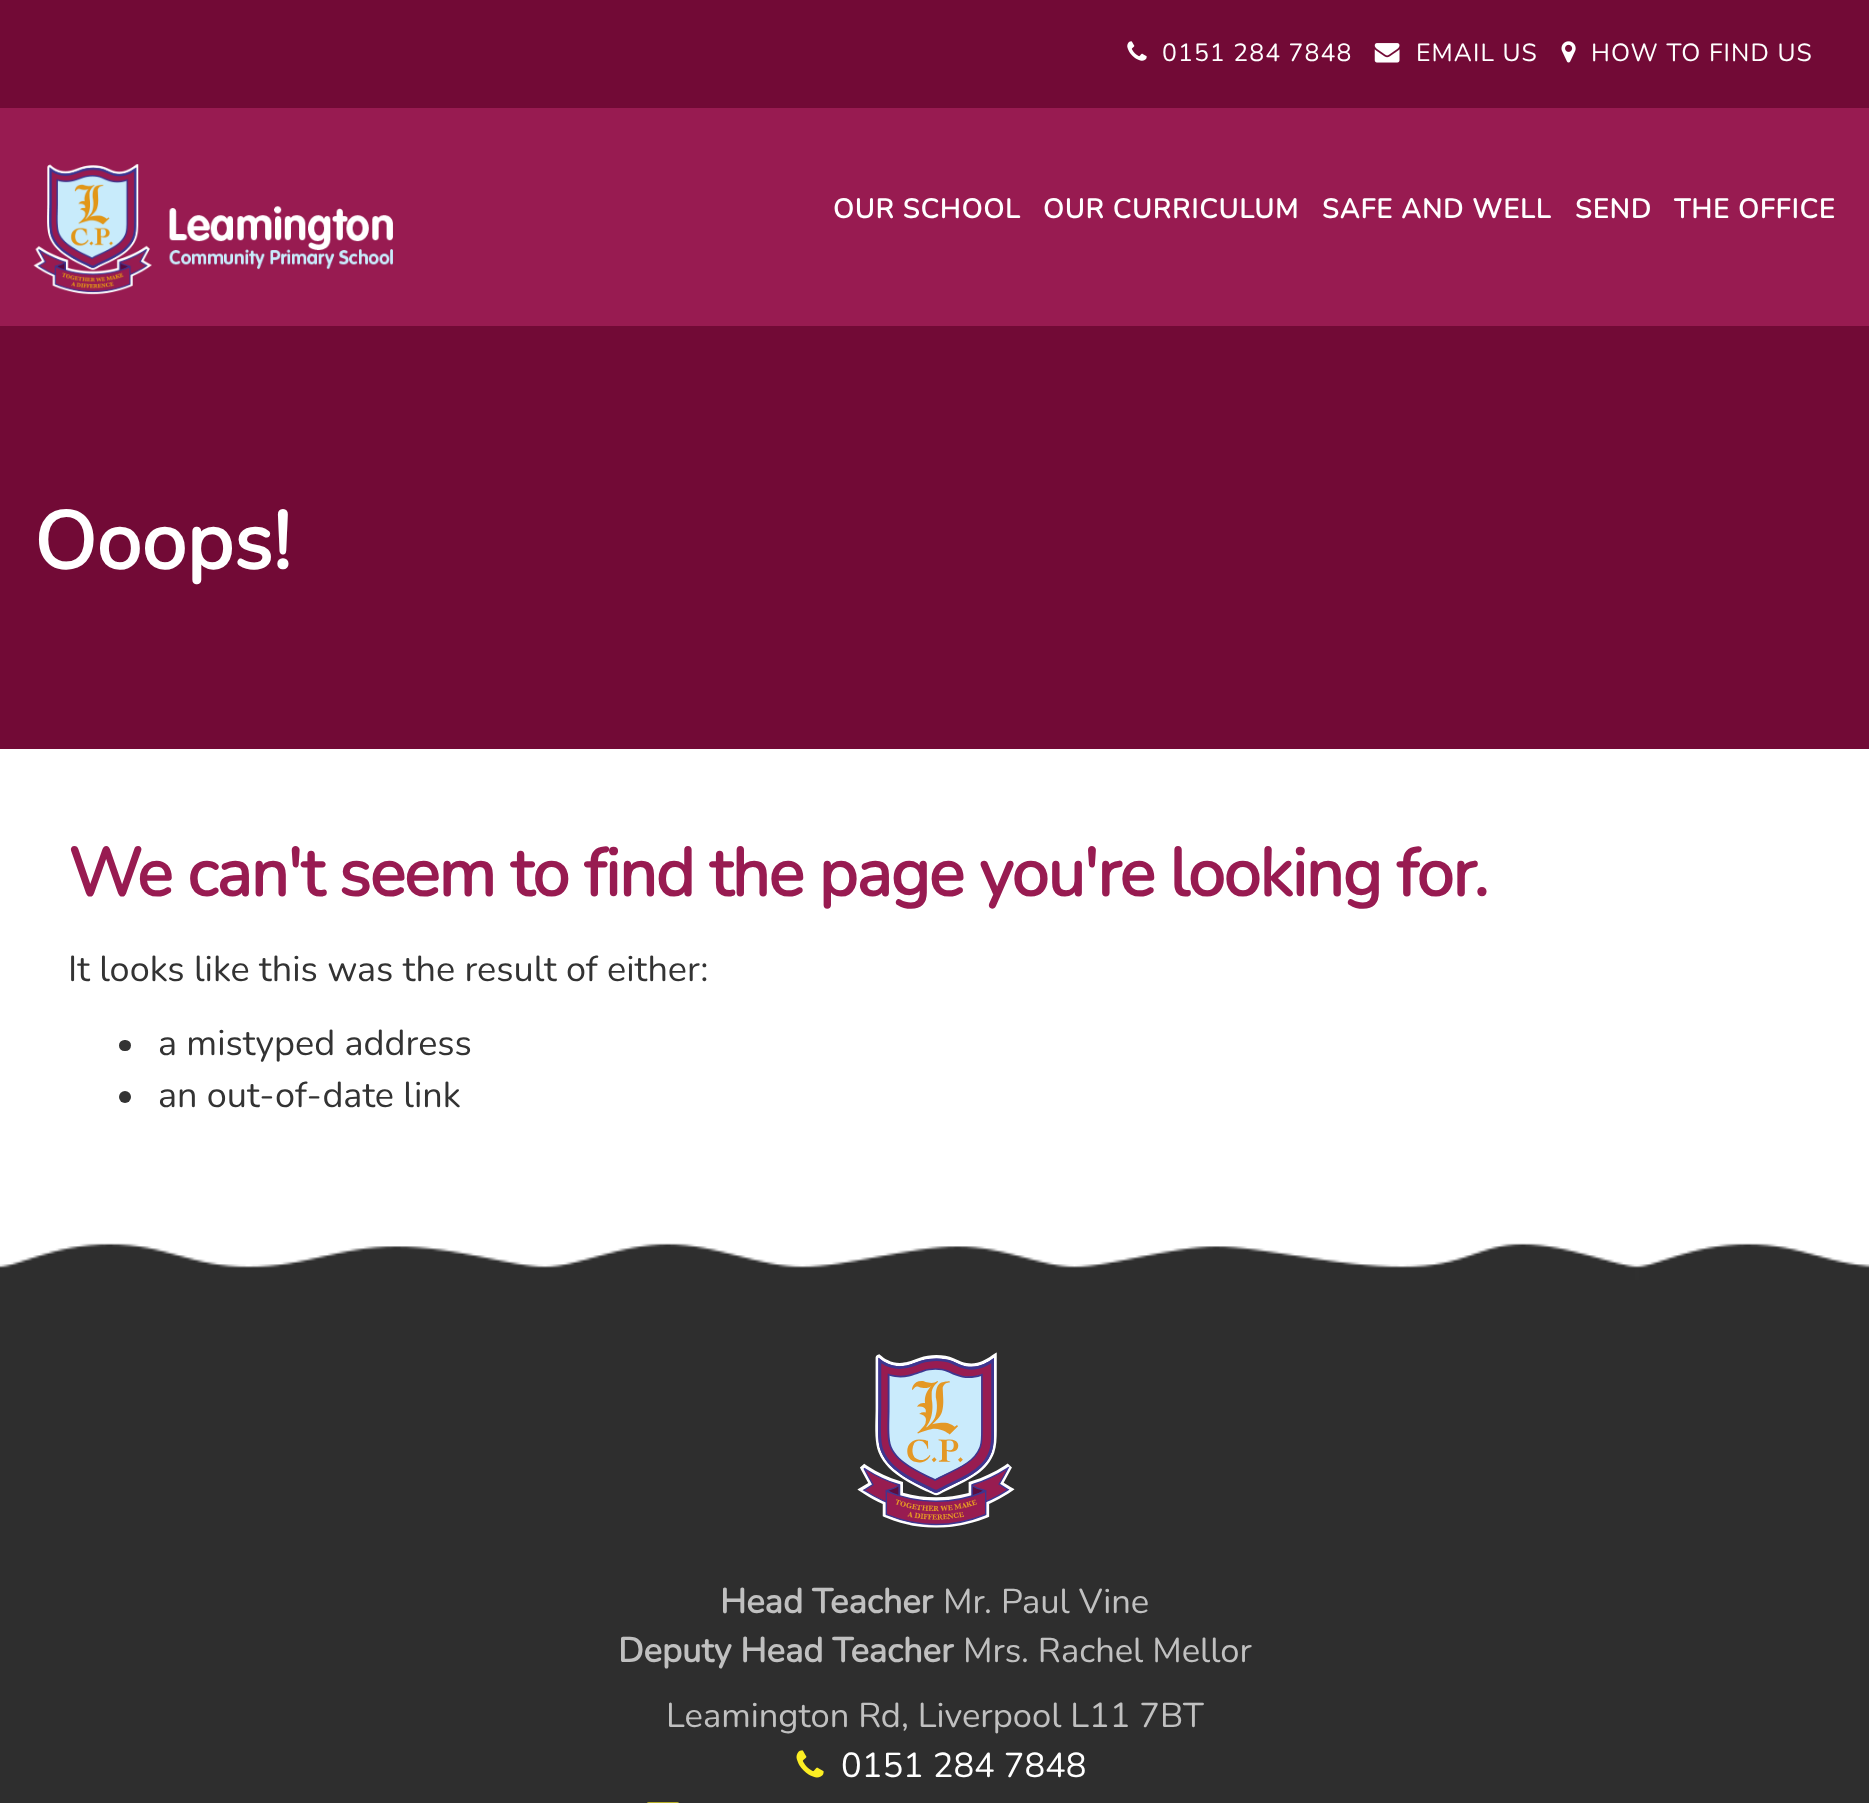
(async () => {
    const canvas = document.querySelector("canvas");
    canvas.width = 1869;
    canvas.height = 1803;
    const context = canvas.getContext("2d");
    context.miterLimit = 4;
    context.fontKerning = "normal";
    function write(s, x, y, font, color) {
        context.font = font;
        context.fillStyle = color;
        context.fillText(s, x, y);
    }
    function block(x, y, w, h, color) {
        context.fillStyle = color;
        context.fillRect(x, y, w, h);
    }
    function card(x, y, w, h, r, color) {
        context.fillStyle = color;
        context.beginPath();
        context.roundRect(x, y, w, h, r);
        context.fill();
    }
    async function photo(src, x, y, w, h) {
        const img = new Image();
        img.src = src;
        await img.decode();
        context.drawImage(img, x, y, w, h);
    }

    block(0, 0, 1869, 1803, "rgb(255, 255, 255)");
    block(0, 108, 1869, 218, "rgb(152, 27, 81)");
    block(0, 0, 1869, 108, "rgb(114, 10, 54)");
    await photo("media/1.png", 1127, 41, 20, 20);
    context.letterSpacing = "1.1px";
    write("0151 284 7848", 1162, 61, "200 24.75px Nunito", "rgb(255, 255, 255)");
    await photo("media/2.png", 1374, 43, 26, 20);
    write("EMAIL US", 1416, 61, "200 24.75px Nunito", "rgb(255, 255, 255)");
    await photo("media/3.png", 1561, 41, 15, 22);
    write("HOW TO FIND US", 1591, 61, "200 24.75px Nunito", "rgb(255, 255, 255)");
    await photo("media/4.png", 33, 164, 360, 131);
    write("OUR SCHOOL", 833, 218, "bold 27px Nunito", "rgb(255, 255, 255)");
    write("OUR CURRICULUM", 1043, 218, "bold 27px Nunito", "rgb(255, 255, 255)");
    write("SAFE AND WELL", 1322, 218, "bold 27px Nunito", "rgb(255, 255, 255)");
    write("SEND", 1575, 218, "bold 27px Nunito", "rgb(255, 255, 255)");
    write("THE OFFICE", 1674, 218, "bold 27px Nunito", "rgb(255, 255, 255)");
    block(0, 326, 1869, 423, "rgb(114, 10, 54)");
    context.letterSpacing = "0px";
    write("Ooops!", 34, 569, "bold 81px Nunito", "rgb(255, 255, 255)");
    context.letterSpacing = "-1.57px";
    write("We can't seem to find the page you're looking for.", 68, 896, "bold 67.5px Nunito", "rgb(152, 27, 81)");
    context.letterSpacing = "0px";
    write("It looks like this was the result of either:", 68, 981, "200 36px Nunito", "rgb(51, 51, 51)");
    card(119, 1040, 12, 11, 5.5, "rgb(51, 51, 51)");
    write("a mistyped address", 158, 1055, "200 36px Nunito", "rgb(51, 51, 51)");
    context.beginPath();
    context.arc(125, 1097, 6, 0, Math.PI * 2);
    context.fill();
    write("an out-of-date link", 158, 1107, "200 36px Nunito", "rgb(51, 51, 51)");
    block(0, 1280, 1869, 523, "rgb(46, 46, 46)");
    await photo("media/5.png", 0, 1243, 1869, 37);
    await photo("media/6.png", 857, 1352, 158, 176);
    write("Head Teacher", 720, 1613, "bold 34.5px Nunito", "rgb(192, 192, 192)");
    write("Mr. Paul Vine", 943, 1613, "200 34.5px Nunito", "rgb(192, 192, 192)");
    write("Deputy Head Teacher", 618, 1662, "bold 34.5px Nunito", "rgb(192, 192, 192)");
    write("Mrs. Rachel Mellor", 963, 1662, "200 34.5px Nunito", "rgb(192, 192, 192)");
    write("Leamington Rd, Liverpool L11 7BT", 666, 1727, "200 34.5px Nunito", "rgb(192, 192, 192)");
    await photo("media/7.png", 796, 1750, 28, 28);
    write("0151 284 7848", 841, 1777, "200 34.5px Nunito", "rgb(255, 255, 255)");
    await photo("media/8.png", 647, 1802, 32, 1);
})();
